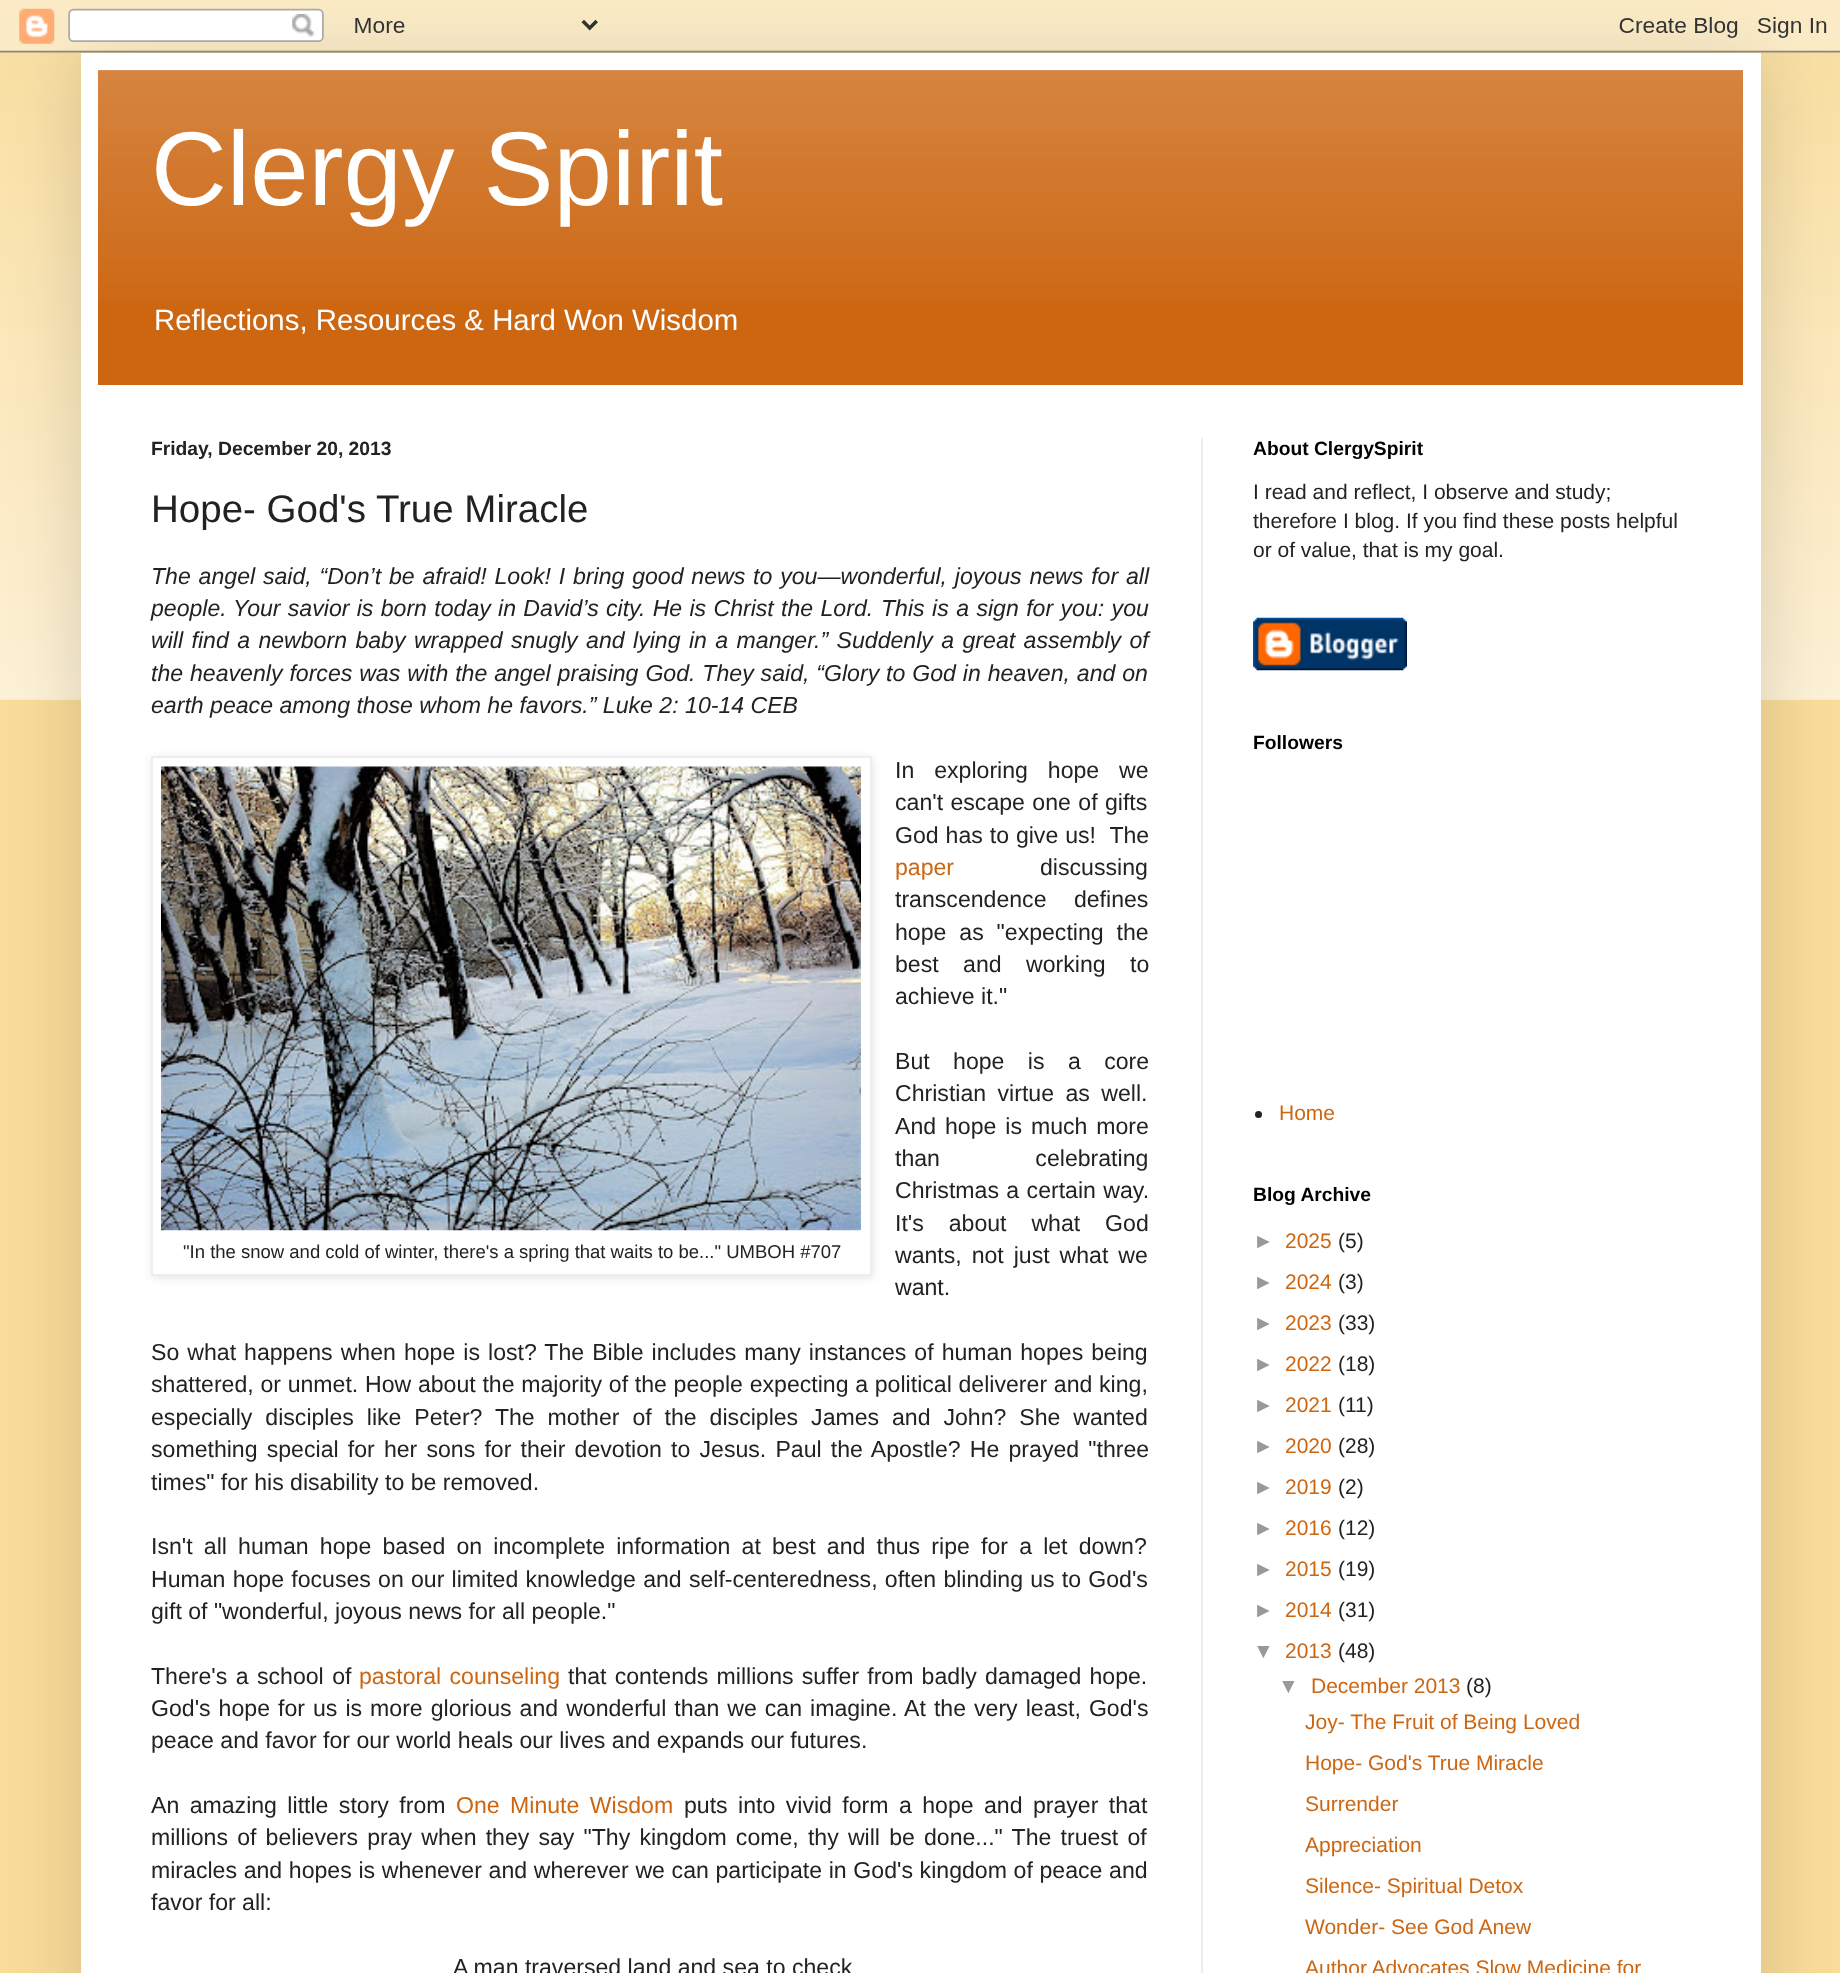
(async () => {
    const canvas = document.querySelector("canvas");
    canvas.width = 1840;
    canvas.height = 1973;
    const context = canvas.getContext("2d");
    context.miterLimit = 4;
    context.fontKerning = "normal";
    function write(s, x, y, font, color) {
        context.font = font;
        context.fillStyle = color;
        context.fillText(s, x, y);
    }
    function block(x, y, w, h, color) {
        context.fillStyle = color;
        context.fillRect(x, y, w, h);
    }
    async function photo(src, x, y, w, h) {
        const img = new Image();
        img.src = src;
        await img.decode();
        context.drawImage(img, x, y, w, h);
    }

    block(0, 0, 1840, 1973, "rgb(249, 220, 153)");
    await photo("media/1.png", 0, 0, 1840, 700);
    context.fillStyle = "rgba(0, 0, 0, 0.15)";
    context.filter = "blur(35px)";
    context.beginPath();
    context.rect(81, 53, 1680, 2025);
    context.fill();
    context.filter = "none";
    await photo("media/2.png", 0, 0, 1840, 53);
    block(81, 53, 1680, 1920, "rgb(255, 255, 255)");
    block(98, 70, 1645, 315, "rgb(204, 102, 17)");
    await photo("media/3.png", 98, 70, 1645, 233);
    write("Clergy Spirit", 151, 205, "105px Liberation Sans", "rgb(255, 255, 255)");
    write("Reflections, Resources & Hard Won Wisdom", 154, 330, "29.4px Liberation Sans", "rgb(255, 255, 255)");
    block(1201, 438, 2, 1535, "rgb(238, 238, 238)");
    write("Friday, December 20, 2013", 151, 455, "bold 19.25px Liberation Sans", "rgb(34, 34, 34)");
    write("Hope- God's True Miracle", 151, 522, "38.5px Liberation Sans", "rgb(34, 34, 34)");
    context.wordSpacing = "1.4px";
    write("The angel said, “Don’t be afraid! Look! I bring good news to you—wonderful, joyous news for all", 151, 584, "italic 23.1px Liberation Sans", "rgb(34, 34, 34)");
    context.wordSpacing = "0px";
    write("people.", 151, 616, "italic 23.1px Liberation Sans", "rgb(34, 34, 34)");
    context.wordSpacing = "0.9px";
    write("Your savior is born today in David’s city. He is Christ the Lord.", 233, 616, "italic 23.1px Liberation Sans", "rgb(34, 34, 34)");
    context.wordSpacing = "1px";
    write("This is a sign for you: you", 881, 616, "italic 23.1px Liberation Sans", "rgb(34, 34, 34)");
    context.wordSpacing = "2px";
    write("will find a newborn baby wrapped snugly and lying in a manger.” Suddenly a great assembly of", 151, 648, "italic 23.1px Liberation Sans", "rgb(34, 34, 34)");
    context.wordSpacing = "0.5px";
    write("the heavenly forces was with the angel praising God. They said, “Glory to God in heaven, and on", 151, 681, "italic 23.1px Liberation Sans", "rgb(34, 34, 34)");
    context.wordSpacing = "0px";
    write("earth peace among those whom he favors.” Luke 2: 10-14 CEB", 151, 713, "italic 23.1px Liberation Sans", "rgb(34, 34, 34)");
    context.wordSpacing = "13.5px";
    write("In exploring hope we", 895, 778, "23.1px Liberation Sans", "rgb(34, 34, 34)");
    context.wordSpacing = "1px";
    write("can't escape one of gifts", 895, 810, "23.1px Liberation Sans", "rgb(34, 34, 34)");
    context.wordSpacing = "0.5px";
    write("God has to give us!  The", 895, 843, "23.1px Liberation Sans", "rgb(34, 34, 34)");
    context.wordSpacing = "0px";
    write("paper", 895, 875, "23.1px Liberation Sans", "rgb(204, 102, 17)");
    write("discussing", 1040, 875, "23.1px Liberation Sans", "rgb(34, 34, 34)");
    context.wordSpacing = "21px";
    write("transcendence defines", 895, 907, "23.1px Liberation Sans", "rgb(34, 34, 34)");
    context.wordSpacing = "6.5px";
    write("hope as \"expecting the", 895, 940, "23.1px Liberation Sans", "rgb(34, 34, 34)");
    context.wordSpacing = "18px";
    write("best and working to", 895, 972, "23.1px Liberation Sans", "rgb(34, 34, 34)");
    context.wordSpacing = "0px";
    write("achieve it.\"", 895, 1004, "23.1px Liberation Sans", "rgb(34, 34, 34)");
    context.wordSpacing = "17px";
    write("But hope is a core", 895, 1069, "23.1px Liberation Sans", "rgb(34, 34, 34)");
    context.wordSpacing = "5px";
    write("Christian virtue as well.", 895, 1101, "23.1px Liberation Sans", "rgb(34, 34, 34)");
    context.wordSpacing = "2.5px";
    write("And hope is much more", 895, 1134, "23.1px Liberation Sans", "rgb(34, 34, 34)");
    context.wordSpacing = "89px";
    write("than celebrating", 895, 1166, "23.1px Liberation Sans", "rgb(34, 34, 34)");
    context.wordSpacing = "1px";
    write("Christmas a certain way.", 895, 1198, "23.1px Liberation Sans", "rgb(34, 34, 34)");
    context.wordSpacing = "18.5px";
    write("It's about what God", 895, 1231, "23.1px Liberation Sans", "rgb(34, 34, 34)");
    context.fillStyle = "rgba(0, 0, 0, 0.1)";
    context.filter = "blur(4.5px)";
    context.beginPath();
    context.rect(152, 758, 721, 520);
    context.fill();
    context.filter = "none";
    context.fillStyle = "rgb(255, 255, 255)";
    context.beginPath();
    context.rect(152, 757, 719, 518);
    context.fill();
    context.strokeStyle = "rgb(238, 238, 238)";
    context.lineWidth = 2;
    context.stroke();
    await photo("media/4.png", 161, 766, 700, 465);
    context.wordSpacing = "0px";
    write("\"In the snow and cold of winter, there's a spring that waits to be...\" UMBOH #707", 183, 1258, "18.5px Liberation Sans", "rgb(34, 34, 34)");
    context.wordSpacing = "3.5px";
    write("wants, not just what we", 895, 1263, "23.1px Liberation Sans", "rgb(34, 34, 34)");
    context.wordSpacing = "0px";
    write("want.", 895, 1295, "23.1px Liberation Sans", "rgb(34, 34, 34)");
    context.wordSpacing = "1.6px";
    write("So what happens when hope is lost? The Bible includes many instances of human hopes being", 151, 1360, "23.1px Liberation Sans", "rgb(34, 34, 34)");
    context.wordSpacing = "0.3px";
    write("shattered, or unmet. How about the majority of the people expecting a political deliverer and king,", 151, 1392, "23.1px Liberation Sans", "rgb(34, 34, 34)");
    context.wordSpacing = "6.5px";
    write("especially disciples like Peter? The mother of the disciples James and John? She wanted", 151, 1425, "23.1px Liberation Sans", "rgb(34, 34, 34)");
    context.wordSpacing = "2.75px";
    write("something special for her sons for their devotion to Jesus. Paul the Apostle? He prayed \"three", 151, 1457, "23.1px Liberation Sans", "rgb(34, 34, 34)");
    context.wordSpacing = "0px";
    write("times\" for his disability to be removed.", 151, 1490, "23.1px Liberation Sans", "rgb(34, 34, 34)");
    context.wordSpacing = "4.75px";
    write("Isn't all human hope based on incomplete information at best and thus ripe for a let down?", 151, 1554, "23.1px Liberation Sans", "rgb(34, 34, 34)");
    context.wordSpacing = "0.8px";
    write("Human hope focuses on our limited knowledge and self-centeredness, often blinding us to God's", 151, 1587, "23.1px Liberation Sans", "rgb(34, 34, 34)");
    context.wordSpacing = "0px";
    write("gift of \"wonderful, joyous news for all people.\"", 151, 1619, "23.1px Liberation Sans", "rgb(34, 34, 34)");
    context.wordSpacing = "2px";
    write("There's a school of", 151, 1684, "23.1px Liberation Sans", "rgb(34, 34, 34)");
    write("pastoral counseling", 359, 1684, "23.1px Liberation Sans", "rgb(204, 102, 17)");
    context.wordSpacing = "1.75px";
    write("that contends millions suffer from badly damaged hope.", 568, 1684, "23.1px Liberation Sans", "rgb(34, 34, 34)");
    context.wordSpacing = "1.6px";
    write("God's hope for us is more glorious and wonderful than we can imagine. At the very least, God's", 151, 1716, "23.1px Liberation Sans", "rgb(34, 34, 34)");
    context.wordSpacing = "0px";
    write("peace and favor for our world heals our lives and expands our futures.", 151, 1748, "23.1px Liberation Sans", "rgb(34, 34, 34)");
    context.wordSpacing = "4px";
    write("An amazing little story from", 151, 1813, "23.1px Liberation Sans", "rgb(34, 34, 34)");
    write("One Minute Wisdom", 456, 1813, "23.1px Liberation Sans", "rgb(204, 102, 17)");
    write("puts into vivid form a hope and prayer that", 684, 1813, "23.1px Liberation Sans", "rgb(34, 34, 34)");
    context.wordSpacing = "2.75px";
    write("millions of believers pray when they say \"Thy kingdom come, thy will be done...\" The truest of", 151, 1845, "23.1px Liberation Sans", "rgb(34, 34, 34)");
    context.wordSpacing = "0.25px";
    write("miracles and hopes is whenever and wherever we can participate in God's kingdom of peace and", 151, 1878, "23.1px Liberation Sans", "rgb(34, 34, 34)");
    context.wordSpacing = "0px";
    write("favor for all:", 151, 1910, "23.1px Liberation Sans", "rgb(34, 34, 34)");
    write("A man traversed land and sea to check", 453, 1975, "23.1px Liberation Sans", "rgb(34, 34, 34)");
    write("About ClergySpirit", 1253, 455, "bold 19.25px Liberation Sans", "rgb(0, 0, 0)");
    write("I read and reflect, I observe and study;", 1253, 499, "21px Liberation Sans", "rgb(34, 34, 34)");
    write("therefore I blog. If you find these posts helpful", 1253, 528, "21px Liberation Sans", "rgb(34, 34, 34)");
    write("or of value, that is my goal.", 1253, 557, "21px Liberation Sans", "rgb(34, 34, 34)");
    await photo("media/5.png", 1253, 617, 154, 54);
    write("Followers", 1253, 749, "bold 19.25px Liberation Sans", "rgb(0, 0, 0)");
    context.fillStyle = "rgb(34, 34, 34)";
    context.beginPath();
    context.arc(1258.5, 1114.5, 3.5, 0, Math.PI * 2);
    context.fill();
    write("Home", 1279, 1120, "21px Liberation Sans", "rgb(204, 102, 17)");
    write("Blog Archive", 1253, 1201, "bold 19.25px Liberation Sans", "rgb(0, 0, 0)");
    write("►", 1253, 1248, "21px Liberation Sans", "rgb(153, 153, 153)");
    write("2025", 1285, 1248, "21px Liberation Sans", "rgb(204, 102, 17)");
    write("(5)", 1338, 1248, "21px Liberation Sans", "rgb(34, 34, 34)");
    write("►", 1253, 1289, "21px Liberation Sans", "rgb(153, 153, 153)");
    write("2024", 1285, 1289, "21px Liberation Sans", "rgb(204, 102, 17)");
    write("(3)", 1338, 1289, "21px Liberation Sans", "rgb(34, 34, 34)");
    write("►", 1253, 1330, "21px Liberation Sans", "rgb(153, 153, 153)");
    write("2023", 1285, 1330, "21px Liberation Sans", "rgb(204, 102, 17)");
    write("(33)", 1338, 1330, "21px Liberation Sans", "rgb(34, 34, 34)");
    write("►", 1253, 1371, "21px Liberation Sans", "rgb(153, 153, 153)");
    write("2022", 1285, 1371, "21px Liberation Sans", "rgb(204, 102, 17)");
    write("(18)", 1338, 1371, "21px Liberation Sans", "rgb(34, 34, 34)");
    write("►", 1253, 1412, "21px Liberation Sans", "rgb(153, 153, 153)");
    write("2021", 1285, 1412, "21px Liberation Sans", "rgb(204, 102, 17)");
    write("(11)", 1338, 1412, "21px Liberation Sans", "rgb(34, 34, 34)");
    write("►", 1253, 1453, "21px Liberation Sans", "rgb(153, 153, 153)");
    write("2020", 1285, 1453, "21px Liberation Sans", "rgb(204, 102, 17)");
    write("(28)", 1338, 1453, "21px Liberation Sans", "rgb(34, 34, 34)");
    write("►", 1253, 1494, "21px Liberation Sans", "rgb(153, 153, 153)");
    write("2019", 1285, 1494, "21px Liberation Sans", "rgb(204, 102, 17)");
    write("(2)", 1338, 1494, "21px Liberation Sans", "rgb(34, 34, 34)");
    write("►", 1253, 1535, "21px Liberation Sans", "rgb(153, 153, 153)");
    write("2016", 1285, 1535, "21px Liberation Sans", "rgb(204, 102, 17)");
    write("(12)", 1338, 1535, "21px Liberation Sans", "rgb(34, 34, 34)");
    write("►", 1253, 1576, "21px Liberation Sans", "rgb(153, 153, 153)");
    write("2015", 1285, 1576, "21px Liberation Sans", "rgb(204, 102, 17)");
    write("(19)", 1338, 1576, "21px Liberation Sans", "rgb(34, 34, 34)");
    write("►", 1253, 1617, "21px Liberation Sans", "rgb(153, 153, 153)");
    write("2014", 1285, 1617, "21px Liberation Sans", "rgb(204, 102, 17)");
    write("(31)", 1338, 1617, "21px Liberation Sans", "rgb(34, 34, 34)");
    write("▼", 1253, 1658, "21px Liberation Sans", "rgb(153, 153, 153)");
    write("2013", 1285, 1658, "21px Liberation Sans", "rgb(204, 102, 17)");
    write("(48)", 1338, 1658, "21px Liberation Sans", "rgb(34, 34, 34)");
    write("▼", 1278, 1693, "21px Liberation Sans", "rgb(153, 153, 153)");
    write("December 2013", 1311, 1693, "21px Liberation Sans", "rgb(204, 102, 17)");
    write("(8)", 1466, 1693, "21px Liberation Sans", "rgb(34, 34, 34)");
    write("Joy- The Fruit of Being Loved", 1305, 1729, "21px Liberation Sans", "rgb(204, 102, 17)");
    write("Hope- God's True Miracle", 1305, 1770, "21px Liberation Sans", "rgb(204, 102, 17)");
    write("Surrender", 1305, 1811, "21px Liberation Sans", "rgb(204, 102, 17)");
    write("Appreciation", 1305, 1852, "21px Liberation Sans", "rgb(204, 102, 17)");
    write("Silence- Spiritual Detox", 1305, 1893, "21px Liberation Sans", "rgb(204, 102, 17)");
    write("Wonder- See God Anew", 1305, 1934, "21px Liberation Sans", "rgb(204, 102, 17)");
    write("Author Advocates Slow Medicine for", 1305, 1975, "21px Liberation Sans", "rgb(204, 102, 17)");
})();
